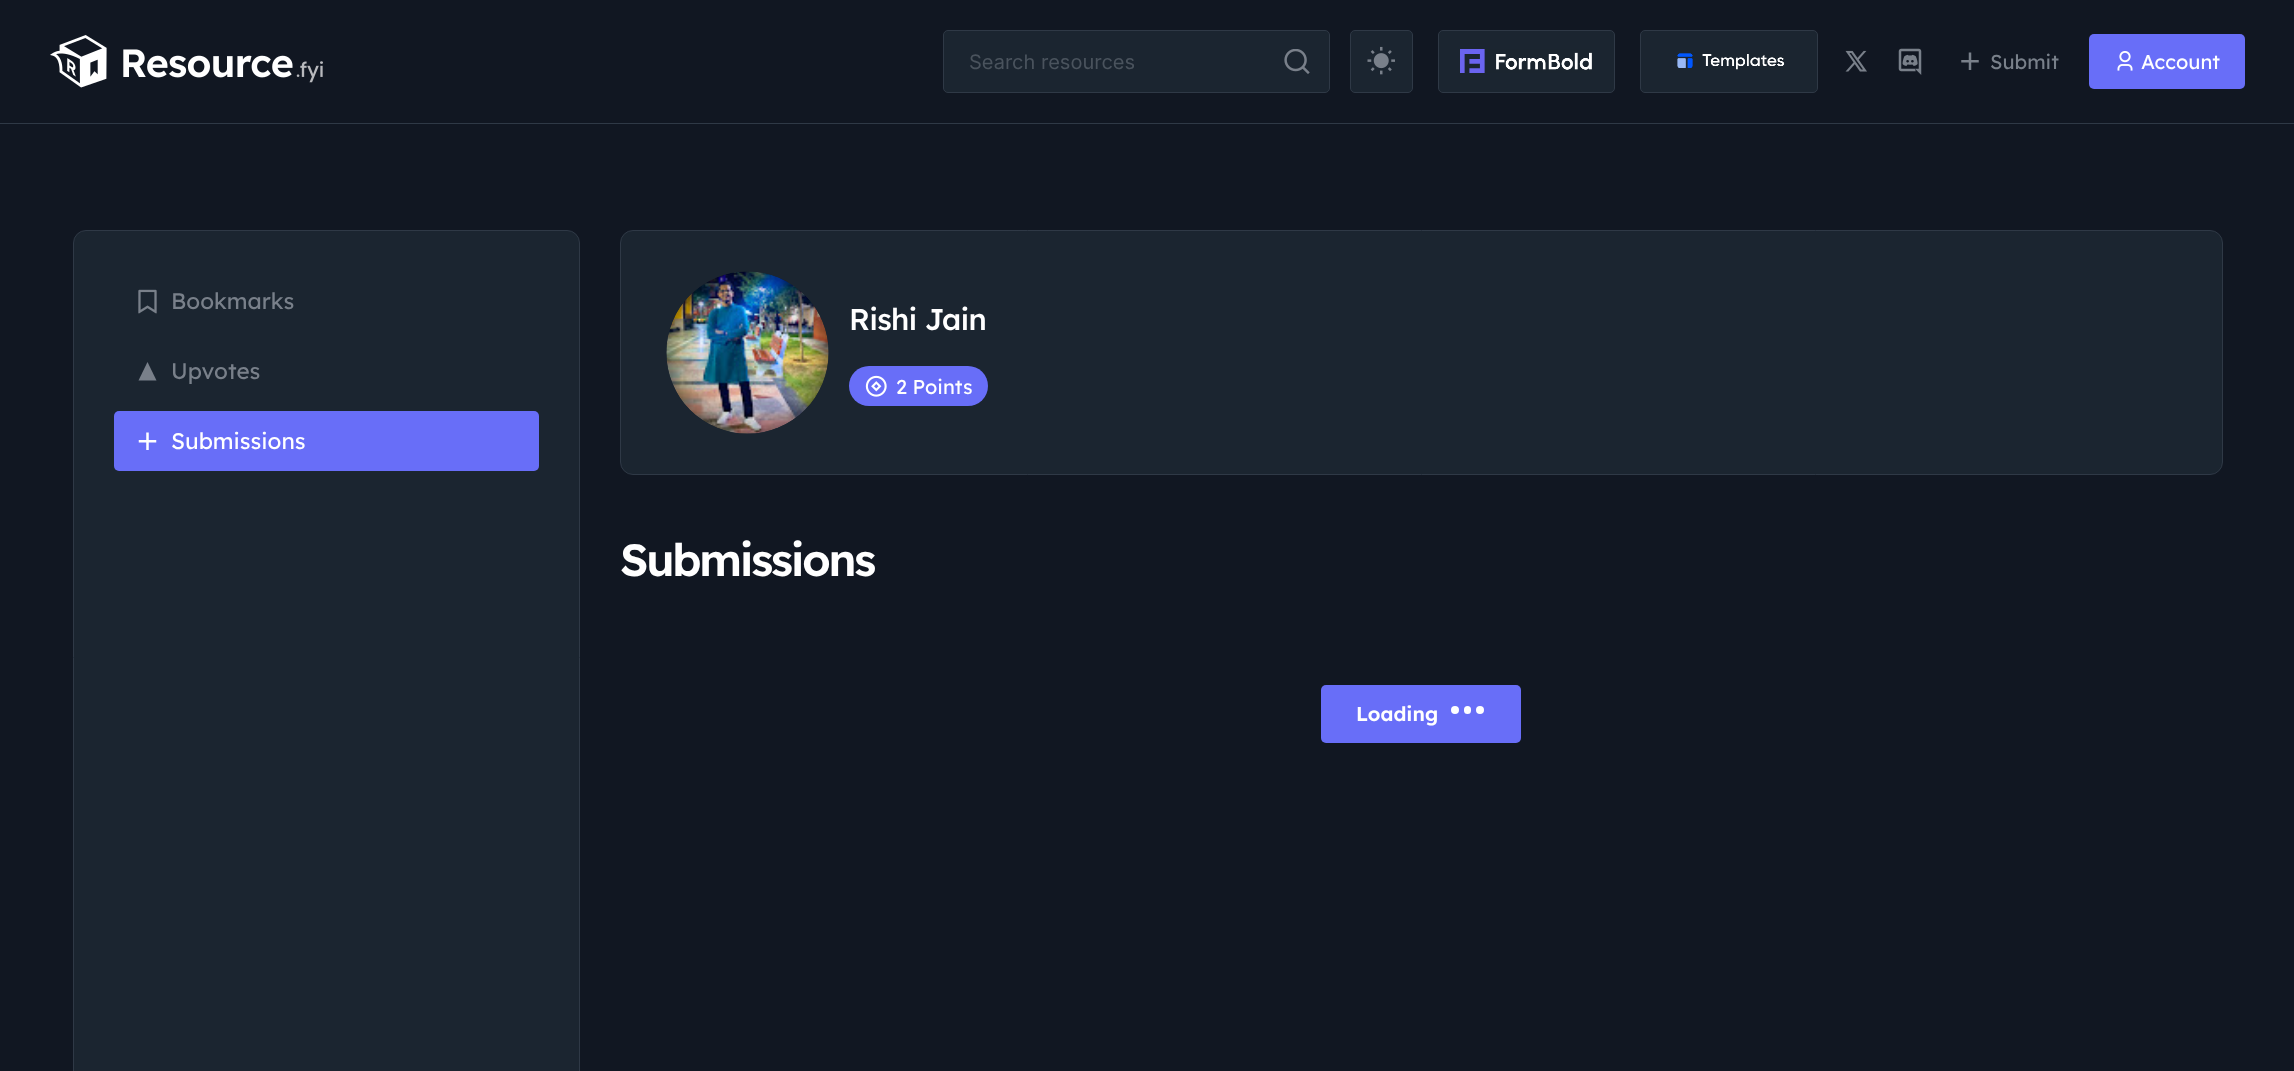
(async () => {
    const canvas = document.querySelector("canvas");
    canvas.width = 2294;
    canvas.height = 1071;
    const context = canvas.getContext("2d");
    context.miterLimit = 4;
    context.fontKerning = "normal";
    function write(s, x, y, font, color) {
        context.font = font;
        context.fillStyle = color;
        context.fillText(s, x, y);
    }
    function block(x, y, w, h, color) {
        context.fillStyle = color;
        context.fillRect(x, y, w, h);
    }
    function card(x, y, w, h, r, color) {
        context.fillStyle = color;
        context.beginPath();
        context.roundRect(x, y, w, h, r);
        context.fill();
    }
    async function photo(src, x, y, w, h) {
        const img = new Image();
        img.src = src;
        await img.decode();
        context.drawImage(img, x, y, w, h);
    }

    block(0, 0, 2294, 1071, "rgb(17, 23, 34)");
    block(0, 123, 2294, 1, "rgb(47, 57, 70)");
    await photo("media/1.png", 50, 35, 273, 53);
    context.fillStyle = "rgb(27, 37, 48)";
    context.beginPath();
    context.roundRect(943.5, 30.5, 386, 62, 4.5);
    context.fill();
    context.strokeStyle = "rgb(47, 57, 70)";
    context.stroke();
    write("Search resources", 969, 69, "20px Inter", "rgb(74, 83, 93)");
    await photo("media/2.png", 1284, 49, 26, 25);
    context.fillStyle = "rgb(27, 37, 48)";
    context.beginPath();
    context.roundRect(1350.5, 30.5, 62, 62, 4.5);
    context.fill();
    context.stroke();
    await photo("media/3.png", 1367, 46, 28, 29);
    context.beginPath();
    context.roundRect(1438.5, 30.5, 176, 62, 4.5);
    context.fill();
    context.stroke();
    await photo("media/4.png", 1460, 49, 132, 24);
    context.beginPath();
    context.roundRect(1640.5, 30.5, 177, 62, 4.5);
    context.fill();
    context.stroke();
    await photo("media/5.png", 1677, 53, 108, 17);
    await photo("media/6.png", 1845, 50, 22, 22);
    await photo("media/7.png", 1898, 48, 24, 27);
    await photo("media/8.png", 1961, 52, 18, 18);
    write("Submit", 1990, 69, "20px Lexend", "rgb(121, 128, 138)");
    card(2089, 34, 156, 55, 5, "rgb(104, 110, 248)");
    await photo("media/9.png", 2117, 51, 16, 20);
    write("Account", 2141, 69, "20px Lexend", "rgb(255, 255, 255)");
    context.fillStyle = "rgb(27, 37, 48)";
    context.beginPath();
    context.roundRect(73.5, 230.5, 506, 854, 12.5);
    context.fill();
    context.stroke();
    await photo("media/10.png", 138, 289, 19, 25);
    write("Bookmarks", 171, 309, "22.5px Lexend", "rgb(121, 128, 138)");
    context.beginPath();
    context.moveTo(147.5, 362);
    context.lineTo(156.5, 380.5);
    context.lineTo(138.5, 380.5);
    context.closePath();
    context.fill();
    write("Upvotes", 171, 379, "22.5px Lexend", "rgb(121, 128, 138)");
    card(114, 411, 425, 60, 5, "rgb(104, 110, 248)");
    await photo("media/11.png", 138, 432, 19, 18);
    write("Submissions", 171, 449, "22.5px Lexend", "rgb(255, 255, 255)");
    context.fillStyle = "rgb(27, 37, 48)";
    context.beginPath();
    context.roundRect(620.5, 230.5, 1602, 244, 12.5);
    context.fill();
    context.stroke();
    await photo("media/12.png", 666, 271, 163, 163);
    context.letterSpacing = "-0.75px";
    write("Rishi Jain", 849, 330, "500 30px Lexend", "rgb(255, 255, 255)");
    card(849, 366, 139, 40, 20, "rgb(104, 110, 248)");
    await photo("media/13.png", 865, 375, 22, 22);
    context.letterSpacing = "0px";
    write("2 Points", 896, 394, "20px Lexend", "rgb(255, 255, 255)");
    context.letterSpacing = "-2.25px";
    write("Submissions", 620, 576, "600 45px Lexend", "rgb(255, 255, 255)");
    card(1321, 685, 200, 58, 5, "rgb(104, 110, 248)");
    context.letterSpacing = "0px";
    write("Loading", 1356, 721, "600 20px Lexend", "rgb(255, 255, 255)");
    context.beginPath();
    context.arc(1455, 710, 4, 0, Math.PI * 2);
    context.fill();
    card(1464, 706, 7, 8, 3.5, "rgb(255, 255, 255)");
    context.beginPath();
    context.arc(1480, 710, 4, 0, Math.PI * 2);
    context.fill();
})();
